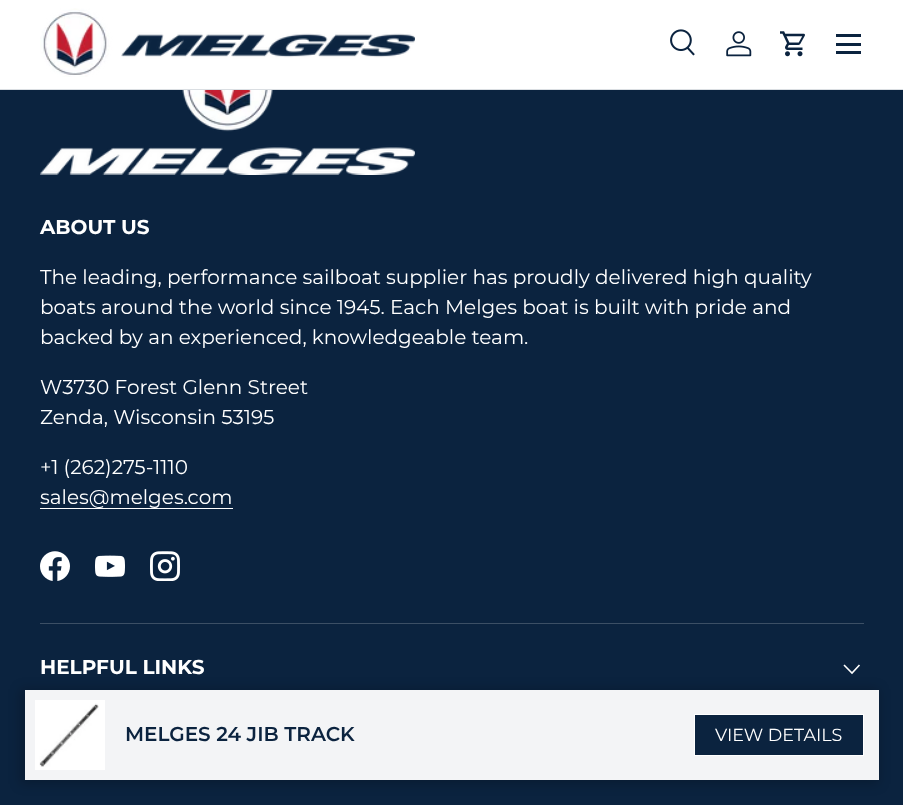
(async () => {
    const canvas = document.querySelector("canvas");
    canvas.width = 903;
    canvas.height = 805;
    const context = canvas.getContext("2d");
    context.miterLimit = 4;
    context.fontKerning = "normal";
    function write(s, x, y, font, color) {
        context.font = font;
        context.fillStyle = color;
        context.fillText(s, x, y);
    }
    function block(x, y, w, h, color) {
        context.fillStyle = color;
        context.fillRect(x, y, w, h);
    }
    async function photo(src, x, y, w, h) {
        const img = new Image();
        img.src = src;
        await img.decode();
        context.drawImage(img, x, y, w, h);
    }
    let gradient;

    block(0, 0, 903, 805, "rgb(11, 35, 63)");
    block(0, 0, 903, 89, "rgb(255, 255, 255)");
    block(0, 89, 903, 1, "rgb(218, 222, 226)");
    await photo("media/1.png", 40, 8, 375, 69);
    await photo("media/2.png", 670, 29, 25, 27);
    await photo("media/3.png", 726, 31, 26, 26);
    await photo("media/4.png", 780, 31, 25, 26);
    block(836, 34, 25, 3, "rgb(11, 35, 63)");
    block(836, 51, 25, 3, "rgb(11, 35, 63)");
    block(836, 43, 25, 3, "rgb(11, 35, 63)");
    await photo("media/5.png", 40, 90, 375, 85);
    write("ABOUT US", 40, 234, "bold 20px Montserrat", "rgb(255, 255, 255)");
    write("The leading, performance sailboat supplier has proudly delivered high quality", 40, 284, "100 20px Montserrat", "rgb(255, 255, 255)");
    write("boats around the world since 1945. Each Melges boat is built with pride and", 40, 314, "100 20px Montserrat", "rgb(255, 255, 255)");
    write("backed by an experienced, knowledgeable team.", 40, 344, "100 20px Montserrat", "rgb(255, 255, 255)");
    write("W3730 Forest Glenn Street", 40, 394, "100 20px Montserrat", "rgb(255, 255, 255)");
    write("Zenda, Wisconsin 53195", 40, 424, "100 20px Montserrat", "rgb(255, 255, 255)");
    write("+1 (262)275-1110", 40, 474, "100 20px Montserrat", "rgb(255, 255, 255)");
    write("sales@melges.com", 40, 504, "100 20px Montserrat", "rgb(255, 255, 255)");
    block(40, 508, 193, 1, "rgb(255, 255, 255)");
    await photo("media/6.png", 40, 551, 30, 30);
    await photo("media/7.png", 95, 555, 30, 22);
    await photo("media/8.png", 150, 551, 30, 30);
    block(40, 623, 824, 1, "rgb(60, 79, 101)");
    write("HELPFUL LINKS", 40, 674, "bold 20px Montserrat", "rgb(255, 255, 255)");
    context.beginPath();
    context.moveTo(859.5, 665);
    context.lineTo(852, 673);
    context.lineTo(844, 665);
    context.strokeStyle = "rgb(255, 255, 255)";
    context.lineWidth = 1.6;
    context.stroke();
    context.fillStyle = "rgba(0, 0, 0, 0.2)";
    context.filter = "blur(6px)";
    context.beginPath();
    context.rect(20, 689, 859, 95);
    context.fill();
    context.filter = "none";
    block(25, 690, 854, 90, "rgb(243, 244, 246)");
    block(35, 700, 70, 70, "rgb(255, 255, 255)");
    await photo("media/9.png", 39, 703, 60, 64);
    write("MELGES 24 JIB TRACK", 125, 741, "600 20px Montserrat", "rgb(11, 35, 63)");
    gradient = context.createLinearGradient(370, 675, 852, 795);
    gradient.addColorStop(0.6, "rgb(49, 70, 93)");
    gradient.addColorStop(0.6, "rgb(11, 35, 63)");
    gradient.addColorStop(1, "rgb(11, 35, 63)");
    context.fillStyle = gradient;
    context.fillRect(695, 715, 168, 40);
    context.lineWidth = 1;
    context.strokeRect(694.5, 714.5, 169, 41);
    write("VIEW DETAILS", 715, 741, "100 17.5px Montserrat", "rgb(255, 255, 255)");
})();
